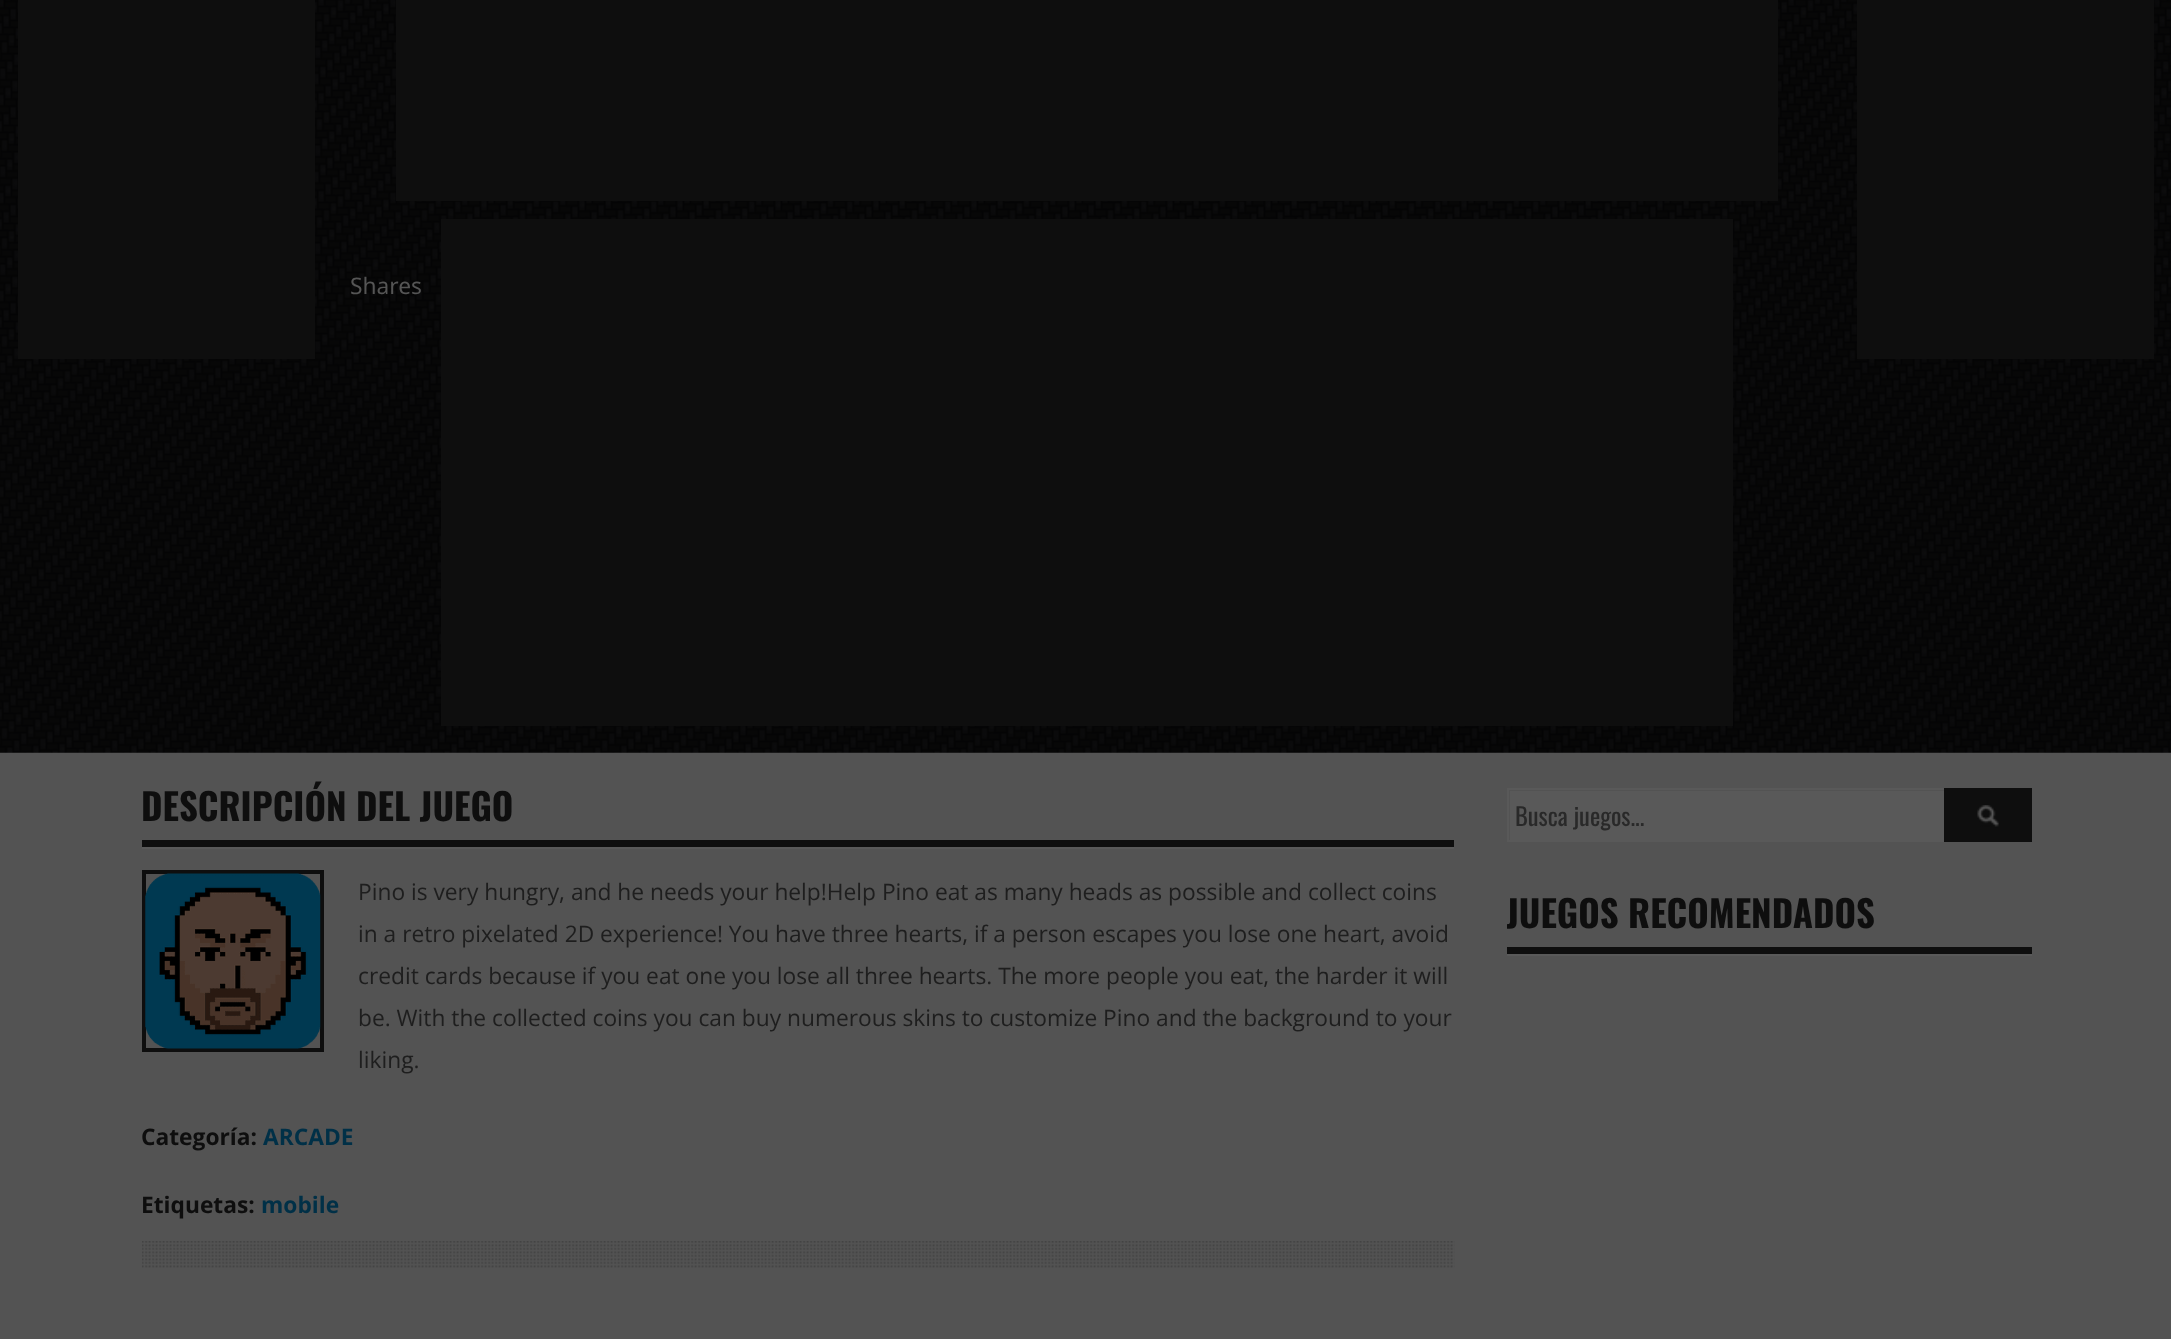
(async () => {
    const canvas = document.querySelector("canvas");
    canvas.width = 2171;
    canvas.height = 1339;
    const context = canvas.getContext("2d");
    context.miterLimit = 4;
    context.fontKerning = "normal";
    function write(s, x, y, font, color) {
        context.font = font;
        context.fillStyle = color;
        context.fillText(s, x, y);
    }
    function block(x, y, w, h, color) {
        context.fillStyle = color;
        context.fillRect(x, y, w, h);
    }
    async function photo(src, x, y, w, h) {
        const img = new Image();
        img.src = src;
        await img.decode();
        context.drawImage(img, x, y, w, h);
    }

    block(0, 0, 2171, 1339, "rgb(83, 83, 83)");
    await photo("media/1.png", 0, 0, 2171, 753);
    write("Shares", 350, 294, "22.75px Noto Sans", "rgb(85, 85, 85)");
    block(18, 0, 297, 359, "rgb(14, 14, 14)");
    block(396, 0, 1382, 201, "rgb(14, 14, 14)");
    block(1857, 0, 297, 359, "rgb(14, 14, 14)");
    block(441, 219, 1292, 507, "rgb(14, 14, 14)");
    block(142, 847, 1312, 2, "rgb(89, 89, 89)");
    block(142, 840, 1312, 7, "rgb(14, 14, 14)");
    write("DESCRIPCIÓN DEL JUEGO", 141, 821, "bold 36.75px Oswald", "rgb(14, 14, 14)");
    await photo("media/2.png", 142, 1241, 1313, 27);
    context.strokeStyle = "rgb(14, 14, 14)";
    context.lineWidth = 4;
    context.strokeRect(144, 872, 178, 178);
    await photo("media/3.png", 145, 873, 176, 176);
    write("Pino is very hungry, and he needs your help!Help Pino eat as many heads as possible and collect coins", 358, 900, "22.75px Open Sans", "rgb(30, 30, 30)");
    write("in a retro pixelated 2D experience! You have three hearts, if a person escapes you lose one heart, avoid", 358, 942, "22.75px Open Sans", "rgb(30, 30, 30)");
    write("credit cards because if you eat one you lose all three hearts. The more people you eat, the harder it will", 358, 984, "22.75px Open Sans", "rgb(30, 30, 30)");
    write("be. With the collected coins you can buy numerous skins to customize Pino and the background to your", 358, 1026, "22.75px Open Sans", "rgb(30, 30, 30)");
    write("liking.", 358, 1068, "22.75px Open Sans", "rgb(30, 30, 30)");
    write("Categoría:", 141, 1145, "bold 22.75px Open Sans", "rgb(14, 14, 14)");
    write("ARCADE", 263, 1145, "bold 22.75px Open Sans", "rgb(0, 48, 71)");
    write("Etiquetas:", 141, 1213, "bold 22.75px Open Sans", "rgb(14, 14, 14)");
    write("mobile", 261, 1213, "bold 22.75px Open Sans", "rgb(0, 48, 71)");
    block(1510, 791, 434, 49, "rgb(89, 89, 89)");
    context.strokeStyle = "rgb(89, 89, 89)";
    context.lineWidth = 2;
    context.strokeRect(1508, 789, 453, 52);
    write("Busca juegos...", 1515, 826, "24.5px Oswald", "rgb(41, 41, 41)");
    block(1944, 788, 88, 54, "rgb(14, 14, 14)");
    await photo("media/4.png", 1977, 805, 22, 22);
    block(1507, 954, 525, 2, "rgb(89, 89, 89)");
    block(1507, 947, 525, 7, "rgb(14, 14, 14)");
    context.save();
    context.beginPath();
    context.rect(1507, 894, 525, 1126);
    context.clip();
    write("JUEGOS RECOMENDADOS", 1506, 928, "bold 36.75px Oswald", "rgb(14, 14, 14)");
    context.restore();
})();
